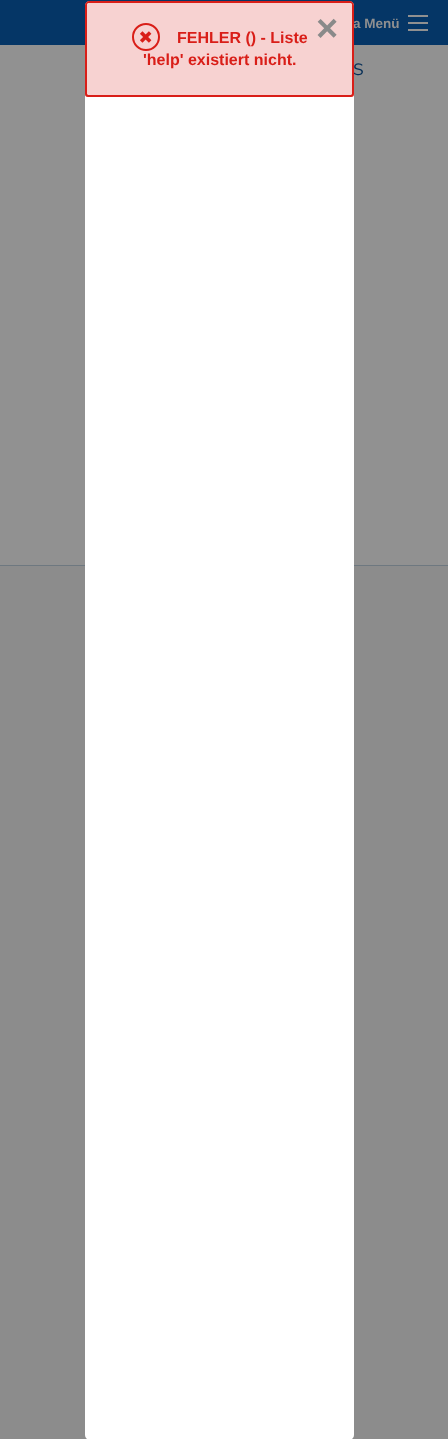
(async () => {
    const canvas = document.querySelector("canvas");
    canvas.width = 448;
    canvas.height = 1439;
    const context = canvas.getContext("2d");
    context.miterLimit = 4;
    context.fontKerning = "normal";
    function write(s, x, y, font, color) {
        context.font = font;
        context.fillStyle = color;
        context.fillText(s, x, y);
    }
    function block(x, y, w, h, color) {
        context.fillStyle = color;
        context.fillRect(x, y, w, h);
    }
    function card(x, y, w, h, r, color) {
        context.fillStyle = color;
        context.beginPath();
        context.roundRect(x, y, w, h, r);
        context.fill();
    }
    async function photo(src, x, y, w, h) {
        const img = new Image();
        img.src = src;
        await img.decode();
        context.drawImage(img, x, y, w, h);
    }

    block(0, 0, 448, 1439, "rgb(140, 140, 140)");
    block(0, 0, 448, 45, "rgb(5, 54, 102)");
    write("a Menü", 353, 28, "bold 13.5px Liberation Sans", "rgb(144, 144, 144)");
    block(0, 45, 448, 520, "rgb(145, 145, 145)");
    write("s", 353, 75, "22px Raleway", "rgb(5, 46, 86)");
    block(0, 565, 448, 1, "rgb(110, 120, 128)");
    card(85, 1, 269, 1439, 5, "rgb(255, 255, 255)");
    context.fillStyle = "rgba(217, 30, 24, 0.2)";
    context.beginPath();
    context.roundRect(85, 1, 269, 96, [5, 5, 3, 3]);
    context.fill();
    context.fillStyle = "rgb(217, 30, 24)";
    context.beginPath();
    context.moveTo(90, 1);
    context.bezierCurveTo(87, 1, 85, 3, 85, 6);
    context.lineTo(85, 94);
    context.bezierCurveTo(85, 96, 86, 97, 88, 97);
    context.lineTo(351, 97);
    context.bezierCurveTo(353, 97, 354, 96, 354, 94);
    context.lineTo(354, 6);
    context.bezierCurveTo(354, 3, 352, 1, 349, 1);
    context.closePath();
    context.moveTo(88, 3);
    context.lineTo(87, 4);
    context.lineTo(87, 94);
    context.lineTo(88, 95);
    context.lineTo(351, 95);
    context.lineTo(352, 94);
    context.lineTo(352, 4);
    context.lineTo(351, 3);
    context.closePath();
    context.fill("evenodd");
    write("×", 316, 41, "bold 38px Liberation Sans", "rgb(138, 138, 138)");
    context.beginPath();
    context.arc(146, 37, 13, 0, Math.PI * 2);
    context.strokeStyle = "rgb(217, 30, 24)";
    context.lineWidth = 2;
    context.stroke();
    await photo("media/1.png", 140, 31, 12, 12);
    write("FEHLER () - Liste", 177, 43, "bold 16px Liberation Sans", "rgb(217, 30, 24)");
    write("'help' existiert nicht.", 143, 65, "bold 16px Liberation Sans", "rgb(217, 30, 24)");
    block(408, 29, 20, 2, "rgb(144, 144, 144)");
    block(408, 22, 20, 2, "rgb(144, 144, 144)");
    block(408, 15, 20, 2, "rgb(144, 144, 144)");
})();
